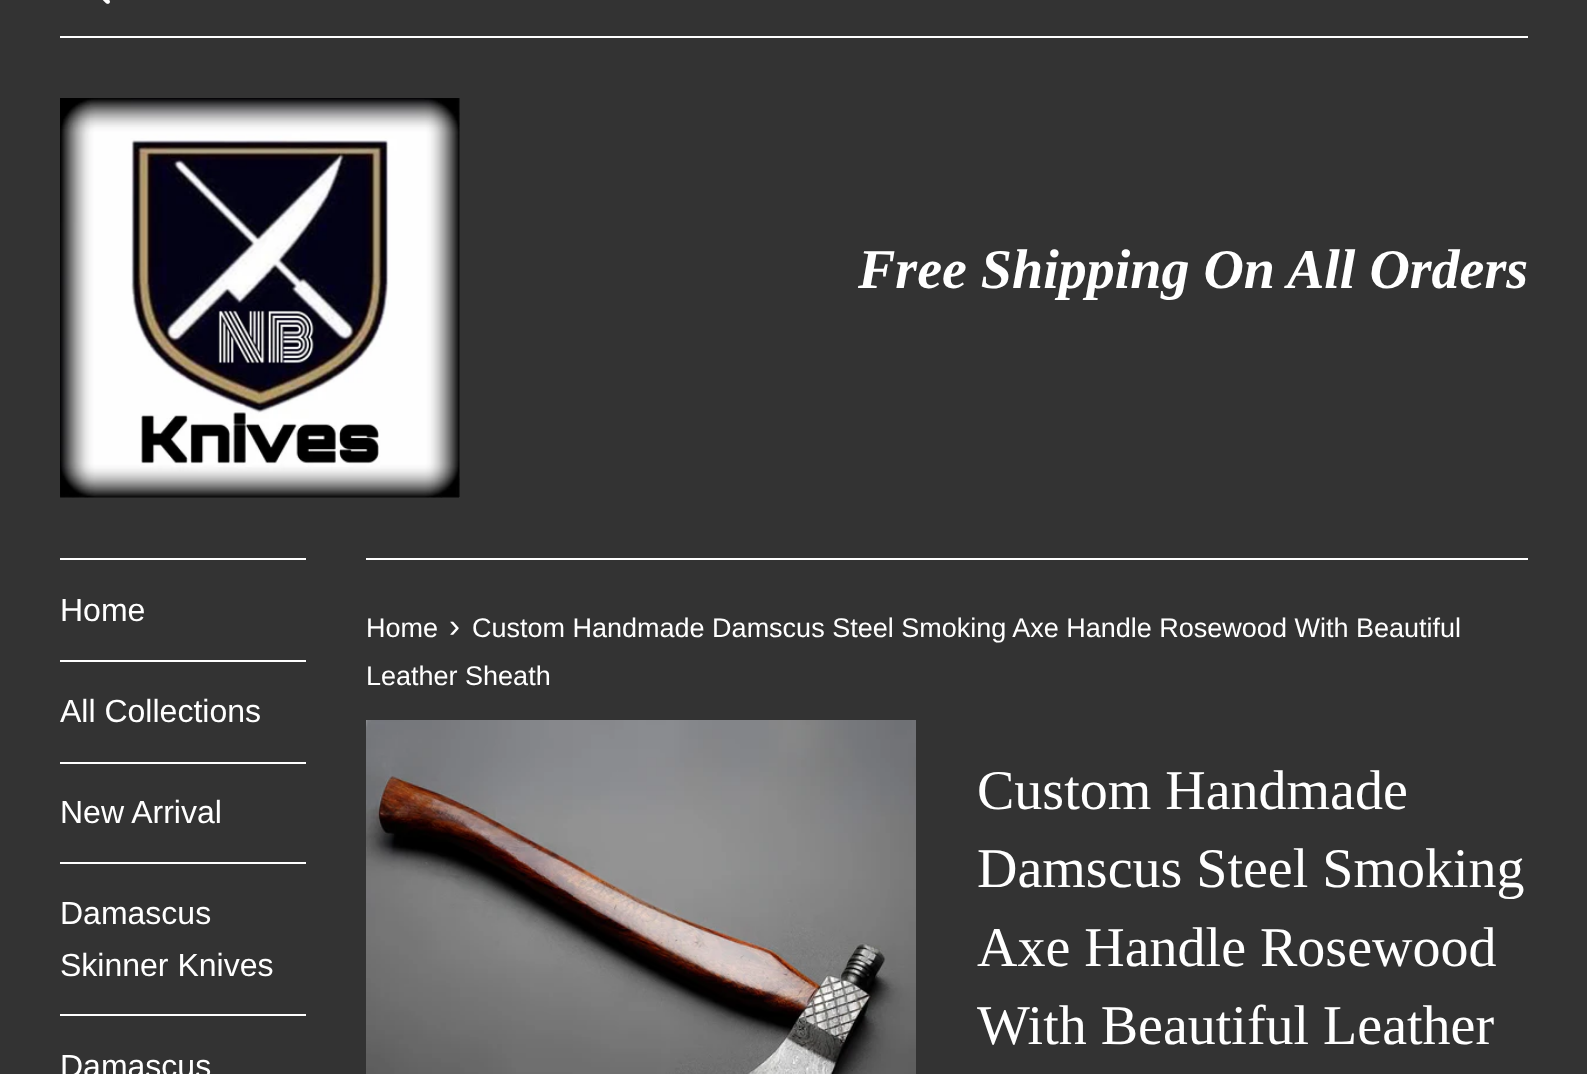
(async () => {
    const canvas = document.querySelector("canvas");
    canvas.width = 1587;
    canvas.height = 1074;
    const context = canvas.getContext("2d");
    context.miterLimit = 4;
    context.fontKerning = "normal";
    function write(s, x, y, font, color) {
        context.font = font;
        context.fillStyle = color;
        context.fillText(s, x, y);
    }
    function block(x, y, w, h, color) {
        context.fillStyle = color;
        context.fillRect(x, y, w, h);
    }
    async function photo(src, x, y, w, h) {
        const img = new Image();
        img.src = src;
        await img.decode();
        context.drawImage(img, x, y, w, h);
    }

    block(0, 0, 1587, 1074, "rgb(51, 51, 51)");
    await photo("media/1.png", 102, 0, 8, 4);
    block(60, 36, 1468, 2, "rgb(255, 255, 255)");
    await photo("media/2.png", 60, 98, 400, 400);
    write("Free Shipping On All Orders", 858, 288, "italic bold 56px Liberation Serif", "rgb(255, 255, 255)");
    block(60, 558, 246, 2, "rgb(255, 255, 255)");
    block(60, 660, 246, 2, "rgb(255, 255, 255)");
    write("Home", 60, 621, "32px Liberation Sans", "rgb(255, 255, 255)");
    block(60, 762, 246, 2, "rgb(255, 255, 255)");
    write("All Collections", 60, 722, "32px Liberation Sans", "rgb(255, 255, 255)");
    block(60, 862, 246, 2, "rgb(255, 255, 255)");
    write("New Arrival", 60, 823, "32px Liberation Sans", "rgb(255, 255, 255)");
    block(60, 1014, 246, 2, "rgb(255, 255, 255)");
    write("Damascus", 60, 924, "32px Liberation Sans", "rgb(255, 255, 255)");
    write("Skinner Knives", 60, 976, "32px Liberation Sans", "rgb(255, 255, 255)");
    write("Damascus", 60, 1077, "32px Liberation Sans", "rgb(255, 255, 255)");
    block(366, 558, 1162, 2, "rgb(255, 255, 255)");
    write("Home", 366, 637, "27px Liberation Sans", "rgb(255, 255, 255)");
    write("›", 449, 637, "33px Liberation Sans", "rgb(255, 255, 255)");
    write("Custom Handmade Damscus Steel Smoking Axe Handle Rosewood With Beautiful", 472, 637, "27px Liberation Sans", "rgb(255, 255, 255)");
    write("Leather Sheath", 366, 685, "27px Liberation Sans", "rgb(255, 255, 255)");
    await photo("media/3.png", 366, 720, 550, 354);
    write("Custom Handmade", 977, 809, "56px Liberation Serif", "rgb(255, 255, 255)");
    write("Damscus Steel Smoking", 977, 887, "56px Liberation Serif", "rgb(255, 255, 255)");
    write("Axe Handle Rosewood", 977, 966, "56px Liberation Serif", "rgb(255, 255, 255)");
    write("With Beautiful Leather", 977, 1044, "56px Liberation Serif", "rgb(255, 255, 255)");
})();
